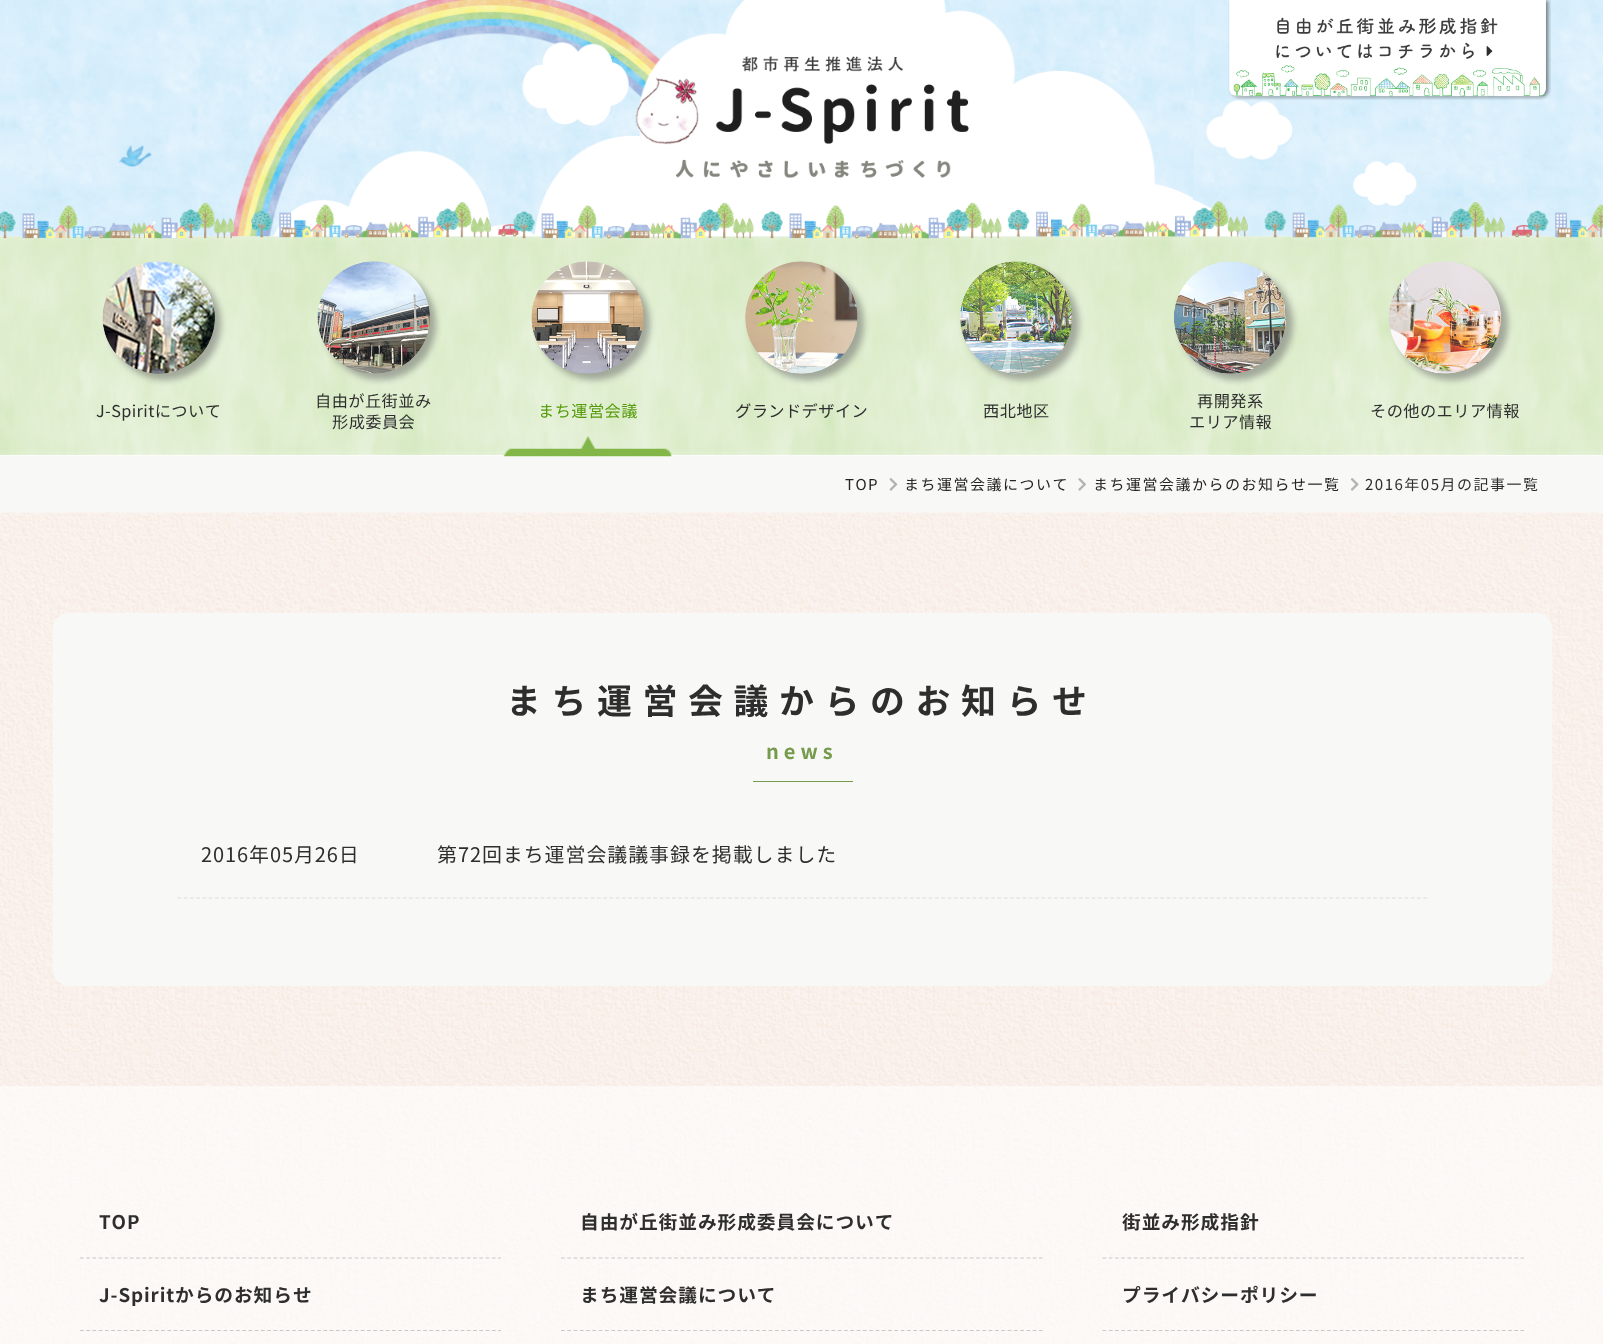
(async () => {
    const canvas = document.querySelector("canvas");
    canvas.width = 1603;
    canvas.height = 1344;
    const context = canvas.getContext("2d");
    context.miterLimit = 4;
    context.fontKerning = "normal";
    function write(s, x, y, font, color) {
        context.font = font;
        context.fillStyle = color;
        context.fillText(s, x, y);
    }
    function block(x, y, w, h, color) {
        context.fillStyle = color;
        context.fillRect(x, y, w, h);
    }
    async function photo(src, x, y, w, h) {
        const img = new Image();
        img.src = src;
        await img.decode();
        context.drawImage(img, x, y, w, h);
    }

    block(0, 0, 1603, 1344, "rgb(248, 248, 246)");
    await photo("media/5.png", 0, 236, 1603, 220);
    await photo("media/1.png", 0, 0, 1603, 237);
    await photo("media/2.png", 635, 56, 334, 122);
    await photo("media/3.png", 1228, 0, 323, 100);
    await photo("media/4.png", 0, 201, 1603, 38);
    context.fillStyle = "rgba(100, 100, 100, 0.5)";
    context.filter = "blur(3px)";
    context.beginPath();
    context.roundRect(109, 268, 112, 112, 56);
    context.fill();
    context.filter = "none";
    await photo("media/6.png", 102, 261, 113, 113);
    context.letterSpacing = "0.4px";
    write("J-Spiritについて", 96, 417, "16.25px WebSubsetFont", "rgb(46, 46, 46)");
    context.fillStyle = "rgba(100, 100, 100, 0.5)";
    context.filter = "blur(3px)";
    context.beginPath();
    context.roundRect(324, 268, 112, 112, 56);
    context.fill();
    context.filter = "none";
    await photo("media/7.png", 317, 261, 113, 113);
    write("自由が丘街並み", 315, 407, "16.25px WebSubsetFont", "rgb(46, 46, 46)");
    write("形成委員会", 332, 428, "16.25px WebSubsetFont", "rgb(46, 46, 46)");
    context.fillStyle = "rgba(100, 100, 100, 0.5)";
    context.filter = "blur(3px)";
    context.beginPath();
    context.roundRect(538, 268, 112, 112, 56);
    context.fill();
    context.filter = "none";
    await photo("media/8.png", 531, 261, 113, 113);
    write("まち運営会議", 538, 417, "16.25px WebSubsetFont", "rgb(85, 154, 8)");
    await photo("media/9.png", 503, 436, 169, 21);
    context.fillStyle = "rgba(100, 100, 100, 0.5)";
    context.filter = "blur(3px)";
    context.beginPath();
    context.roundRect(751, 268, 113, 112, 56);
    context.fill();
    context.filter = "none";
    await photo("media/10.png", 745, 261, 113, 113);
    write("グランドデザイン", 735, 417, "16.25px WebSubsetFont", "rgb(46, 46, 46)");
    context.fillStyle = "rgba(100, 100, 100, 0.5)";
    context.filter = "blur(3px)";
    context.beginPath();
    context.roundRect(966, 268, 113, 112, 56);
    context.fill();
    context.filter = "none";
    await photo("media/11.png", 960, 261, 113, 113);
    write("西北地区", 983, 417, "16.25px WebSubsetFont", "rgb(46, 46, 46)");
    context.fillStyle = "rgba(100, 100, 100, 0.5)";
    context.filter = "blur(3px)";
    context.beginPath();
    context.roundRect(1180, 268, 113, 112, 56);
    context.fill();
    context.filter = "none";
    await photo("media/12.png", 1174, 261, 113, 113);
    write("再開発系", 1197, 407, "16.25px WebSubsetFont", "rgb(46, 46, 46)");
    write("エリア情報", 1189, 428, "16.25px WebSubsetFont", "rgb(46, 46, 46)");
    context.fillStyle = "rgba(100, 100, 100, 0.5)";
    context.filter = "blur(3px)";
    context.beginPath();
    context.roundRect(1395, 268, 113, 112, 56);
    context.fill();
    context.filter = "none";
    await photo("media/13.png", 1389, 261, 112, 113);
    write("その他のエリア情報", 1370, 417, "16.25px WebSubsetFont", "rgb(46, 46, 46)");
    context.letterSpacing = "1.5px";
    write("TOP", 845, 490, "15px WebSubsetFont", "rgb(38, 35, 35)");
    await photo("media/14.png", 889, 478, 9, 13);
    write("まち運営会議について", 904, 490, "15px WebSubsetFont", "rgb(38, 35, 35)");
    await photo("media/15.png", 1078, 478, 8, 13);
    write("まち運営会議からのお知らせ一覧", 1093, 490, "15px WebSubsetFont", "rgb(38, 35, 35)");
    await photo("media/16.png", 1350, 478, 9, 13);
    write("2016年05月の記事一覧", 1365, 490, "15px WebSubsetFont", "rgb(46, 46, 46)");
    await photo("media/17.png", 0, 512, 1603, 575);
    await photo("media/18.png", 52, 612, 1501, 374);
    context.letterSpacing = "10.5px";
    write("まち運営会議からのお知らせ", 506, 714, "bold 35px WebSubsetFont", "rgb(46, 46, 46)");
    context.letterSpacing = "5px";
    write("news", 766, 759, "bold 20px WebSubsetFont", "rgb(118, 155, 77)");
    block(753, 781, 100, 1, "rgb(118, 155, 77)");
    context.beginPath();
    context.moveTo(177.5, 898);
    context.lineTo(1427.5, 898);
    context.strokeStyle = "rgb(220, 220, 220)";
    context.lineWidth = 1.2;
    context.setLineDash([3.75, 2.51]);
    context.stroke();
    context.letterSpacing = "0.9px";
    write("2016年05月26日", 201, 862, "20px WebSubsetFont", "rgb(46, 46, 46)");
    write("第72回まち運営会議議事録を掲載しました", 437, 862, "20px WebSubsetFont", "rgb(46, 46, 46)");
    await photo("media/19.png", 0, 1086, 1603, 258);
    context.beginPath();
    context.moveTo(80, 1258);
    context.lineTo(501, 1258);
    context.strokeStyle = "rgb(200, 200, 200)";
    context.setLineDash([3.75, 2.49]);
    context.stroke();
    write("TOP", 99, 1229, "bold 18.75px WebSubsetFont", "rgb(46, 46, 46)");
    context.beginPath();
    context.moveTo(80, 1330.5);
    context.lineTo(501, 1330.5);
    context.stroke();
    write("J-Spiritからのお知らせ", 99, 1302, "bold 18.75px WebSubsetFont", "rgb(46, 46, 46)");
    context.beginPath();
    context.moveTo(561, 1258);
    context.lineTo(1042.5, 1258);
    context.setLineDash([3.75, 2.54]);
    context.stroke();
    write("自由が丘街並み形成委員会について", 580, 1229, "bold 18.75px WebSubsetFont", "rgb(46, 46, 46)");
    context.beginPath();
    context.moveTo(561, 1330.5);
    context.lineTo(1042.5, 1330.5);
    context.stroke();
    write("まち運営会議について", 580, 1302, "bold 18.75px WebSubsetFont", "rgb(46, 46, 46)");
    context.beginPath();
    context.moveTo(1102.5, 1258);
    context.lineTo(1524, 1258);
    context.setLineDash([3.75, 2.49]);
    context.stroke();
    write("街並み形成指針", 1122, 1229, "bold 18.75px WebSubsetFont", "rgb(46, 46, 46)");
    context.beginPath();
    context.moveTo(1102.5, 1330.5);
    context.lineTo(1524, 1330.5);
    context.stroke();
    write("プライバシーポリシー", 1122, 1302, "bold 18.75px WebSubsetFont", "rgb(46, 46, 46)");
})();
